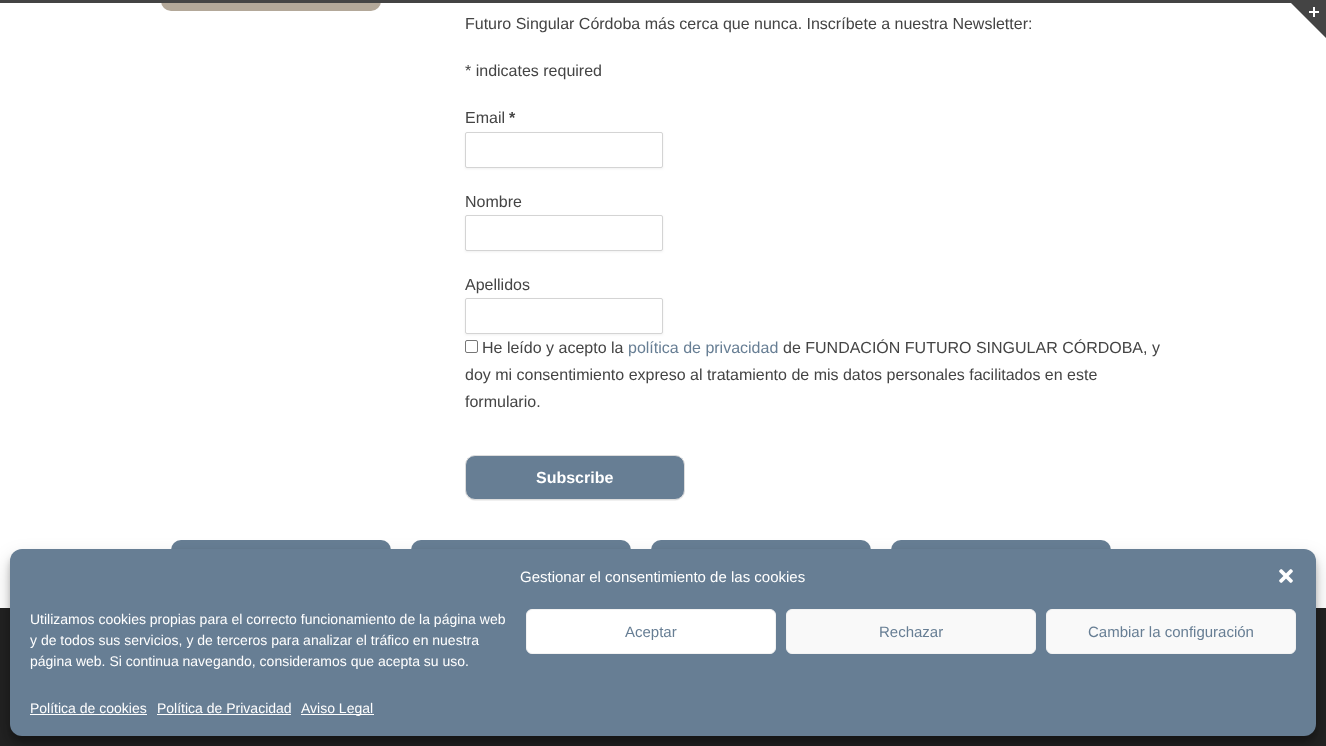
(async () => {
    const canvas = document.querySelector("canvas");
    canvas.width = 1326;
    canvas.height = 746;
    const context = canvas.getContext("2d");
    context.miterLimit = 4;
    context.fontKerning = "normal";
    function write(s, x, y, font, color) {
        context.font = font;
        context.fillStyle = color;
        context.fillText(s, x, y);
    }
    function block(x, y, w, h, color) {
        context.fillStyle = color;
        context.fillRect(x, y, w, h);
    }
    function card(x, y, w, h, r, color) {
        context.fillStyle = color;
        context.beginPath();
        context.roundRect(x, y, w, h, r);
        context.fill();
    }
    async function photo(src, x, y, w, h) {
        const img = new Image();
        img.src = src;
        await img.decode();
        context.drawImage(img, x, y, w, h);
    }

    block(0, 0, 1326, 746, "rgb(255, 255, 255)");
    card(161, -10, 220, 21, 10, "rgb(179, 168, 153)");
    block(0, 0, 1291, 3, "rgb(68, 68, 68)");
    context.beginPath();
    context.moveTo(1326, -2);
    context.lineTo(1326, 38);
    context.lineTo(1286, -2);
    context.closePath();
    context.fill();
    await photo("media/1.png", 1309, 7, 10, 10);
    write("Futuro Singular Córdoba más cerca que nunca. Inscríbete a nuestra Newsletter:", 465, 29, "16px Liberation Sans", "rgb(68, 68, 68)");
    write("* indicates required", 465, 76, "16px Liberation Sans", "rgb(68, 68, 68)");
    write("Email", 465, 123, "16px Liberation Sans", "rgb(68, 68, 68)");
    write("*", 509, 123, "bold 16px Liberation Sans", "rgb(68, 68, 68)");
    context.fillStyle = "rgba(180, 180, 180, 0.2)";
    context.filter = "blur(1px)";
    context.beginPath();
    context.roundRect(465, 133, 198, 36, 2);
    context.fill();
    context.filter = "none";
    context.fillStyle = "rgb(255, 255, 255)";
    context.beginPath();
    context.roundRect(465.5, 132.5, 197, 35, 1.5);
    context.fill();
    context.strokeStyle = "rgb(212, 212, 212)";
    context.stroke();
    write("Nombre", 465, 207, "16px Liberation Sans", "rgb(68, 68, 68)");
    context.fillStyle = "rgba(180, 180, 180, 0.2)";
    context.filter = "blur(1px)";
    context.beginPath();
    context.roundRect(465, 216, 198, 36, 2);
    context.fill();
    context.filter = "none";
    context.fillStyle = "rgb(255, 255, 255)";
    context.beginPath();
    context.roundRect(465.5, 215.5, 197, 35, 1.5);
    context.fill();
    context.stroke();
    write("Apellidos", 465, 290, "16px Liberation Sans", "rgb(68, 68, 68)");
    context.fillStyle = "rgba(180, 180, 180, 0.2)";
    context.filter = "blur(1px)";
    context.beginPath();
    context.roundRect(465, 299, 198, 36, 2);
    context.fill();
    context.filter = "none";
    context.fillStyle = "rgb(255, 255, 255)";
    context.beginPath();
    context.roundRect(465.5, 298.5, 197, 35, 1.5);
    context.fill();
    context.stroke();
    context.beginPath();
    context.roundRect(465.5, 340.5, 12, 12, 1.5);
    context.strokeStyle = "rgb(118, 118, 118)";
    context.stroke();
    write("He leído y acepto la", 482, 353, "16px Liberation Sans", "rgb(68, 68, 68)");
    write("política de privacidad", 628, 353, "16px Liberation Sans", "rgb(103, 126, 148)");
    write("de FUNDACIÓN FUTURO SINGULAR CÓRDOBA, y", 783, 353, "16px Liberation Sans", "rgb(68, 68, 68)");
    write("doy mi consentimiento expreso al tratamiento de mis datos personales facilitados en este", 465, 380, "16px Liberation Sans", "rgb(68, 68, 68)");
    write("formulario.", 465, 407, "16px Liberation Sans", "rgb(68, 68, 68)");
    context.fillStyle = "rgba(180, 180, 180, 0.2)";
    context.filter = "blur(0.5px)";
    context.beginPath();
    context.roundRect(465, 456, 220, 45, 10);
    context.fill();
    context.filter = "none";
    context.fillStyle = "rgb(103, 126, 148)";
    context.beginPath();
    context.roundRect(465.5, 455.5, 219, 44, 9.5);
    context.fill();
    context.strokeStyle = "rgb(221, 221, 221)";
    context.stroke();
    write("Subscribe", 536, 483, "bold 16px Liberation Sans", "rgb(255, 255, 255)");
    card(171, 540, 220, 48, 10, "rgb(103, 126, 148)");
    card(411, 540, 220, 48, 10, "rgb(103, 126, 148)");
    card(651, 540, 220, 48, 10, "rgb(103, 126, 148)");
    card(891, 540, 220, 48, 10, "rgb(103, 126, 148)");
    block(0, 608, 1326, 138, "rgb(34, 34, 34)");
    context.fillStyle = "rgba(0, 0, 0, 0.23)";
    context.filter = "blur(3px)";
    context.beginPath();
    context.roundRect(10, 555, 1306, 187, 12);
    context.fill();
    context.filter = "none";
    context.fillStyle = "rgba(0, 0, 0, 0.19)";
    context.filter = "blur(10px)";
    context.beginPath();
    context.roundRect(10, 559, 1306, 187, 12);
    context.fill();
    context.filter = "none";
    card(10, 549, 1306, 187, 12, "rgb(103, 126, 148)");
    write("Gestionar el consentimiento de las cookies", 520, 582, "15px Liberation Sans", "rgb(255, 255, 255)");
    await photo("media/2.png", 1279, 569, 14, 14);
    write("Utilizamos cookies propias para el correcto funcionamiento de la página web", 30, 624, "14px Liberation Sans", "rgb(255, 255, 255)");
    write("y de todos sus servicios, y de terceros para analizar el tráfico en nuestra", 30, 645, "14px Liberation Sans", "rgb(255, 255, 255)");
    write("página web. Si continua navegando, consideramos que acepta su uso.", 30, 666, "14px Liberation Sans", "rgb(255, 255, 255)");
    context.beginPath();
    context.roundRect(526.5, 609.5, 249, 44, 5.5);
    context.fill();
    context.strokeStyle = "rgb(242, 242, 242)";
    context.stroke();
    write("Aceptar", 625, 637, "15px Liberation Sans", "rgb(103, 126, 148)");
    context.fillStyle = "rgb(249, 249, 249)";
    context.beginPath();
    context.roundRect(786.5, 609.5, 249, 44, 5.5);
    context.fill();
    context.stroke();
    write("Rechazar", 879, 637, "15px Liberation Sans", "rgb(103, 126, 148)");
    context.fillStyle = "rgb(249, 249, 249)";
    context.beginPath();
    context.roundRect(1046.5, 609.5, 249, 44, 5.5);
    context.fill();
    context.stroke();
    write("Cambiar la configuración", 1088, 637, "15px Liberation Sans", "rgb(103, 126, 148)");
    write("Política de cookies", 30, 713, "14px Liberation Sans", "rgb(255, 255, 255)");
    block(30, 714, 117, 1, "rgb(255, 255, 255)");
    write("Política de Privacidad", 157, 713, "14px Liberation Sans", "rgb(255, 255, 255)");
    block(157, 714, 134, 1, "rgb(255, 255, 255)");
    block(301, 714, 73, 1, "rgb(255, 255, 255)");
    write("Aviso Legal", 301, 713, "14px Liberation Sans", "rgb(255, 255, 255)");
})();
